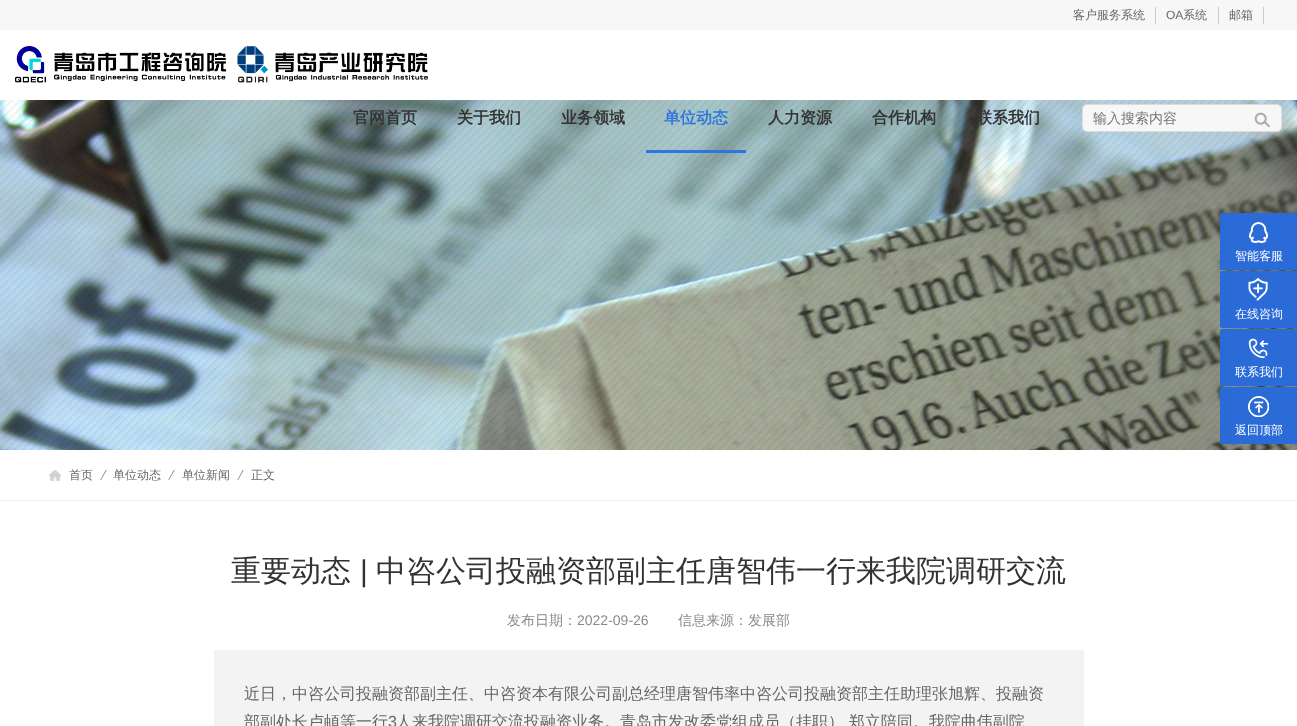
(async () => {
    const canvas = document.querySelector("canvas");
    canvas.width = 1297;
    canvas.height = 726;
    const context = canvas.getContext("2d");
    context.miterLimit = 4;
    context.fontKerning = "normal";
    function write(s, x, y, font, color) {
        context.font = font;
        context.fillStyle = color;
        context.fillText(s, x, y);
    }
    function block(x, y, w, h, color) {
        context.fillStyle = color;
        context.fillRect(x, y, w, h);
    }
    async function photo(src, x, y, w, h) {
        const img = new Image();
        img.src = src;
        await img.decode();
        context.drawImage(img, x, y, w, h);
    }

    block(0, 0, 1297, 726, "rgb(255, 255, 255)");
    block(0, 0, 1297, 30, "rgb(247, 247, 247)");
    block(1155, 7, 1, 17, "rgb(203, 203, 203)");
    write("客户服务系统", 1073, 19, "500 12px WenQuanYi Zen Hei", "rgb(102, 102, 102)");
    block(1218, 7, 1, 17, "rgb(203, 203, 203)");
    write("OA", 1166, 19, "12px Liberation Sans", "rgb(102, 102, 102)");
    write("系统", 1183, 19, "500 12px WenQuanYi Zen Hei", "rgb(102, 102, 102)");
    block(1263, 7, 1, 17, "rgb(203, 203, 203)");
    write("邮箱", 1229, 19, "500 12px WenQuanYi Zen Hei", "rgb(102, 102, 102)");
    await photo("media/1.png", 15, 46, 413, 37);
    await photo("media/3.png", 0, 100, 1297, 350);
    write("官网首页", 353, 123, "bold 16px WenQuanYi Zen Hei", "rgb(51, 51, 51)");
    write("关于我们", 457, 123, "bold 16px WenQuanYi Zen Hei", "rgb(51, 51, 51)");
    write("业务领域", 561, 123, "bold 16px WenQuanYi Zen Hei", "rgb(51, 51, 51)");
    write("单位动态", 664, 123, "bold 16px WenQuanYi Zen Hei", "rgb(47, 117, 221)");
    block(646, 150, 100, 3, "rgb(47, 117, 221)");
    write("人力资源", 768, 123, "bold 16px WenQuanYi Zen Hei", "rgb(51, 51, 51)");
    write("合作机构", 872, 123, "bold 16px WenQuanYi Zen Hei", "rgb(51, 51, 51)");
    write("联系我们", 976, 123, "bold 16px WenQuanYi Zen Hei", "rgb(51, 51, 51)");
    context.fillStyle = "rgb(247, 247, 247)";
    context.beginPath();
    context.roundRect(1082.5, 104.5, 199, 27, 4.5);
    context.fill();
    context.strokeStyle = "rgb(220, 220, 220)";
    context.stroke();
    write("输入搜索内容", 1093, 123, "500 14px WenQuanYi Zen Hei", "rgb(117, 117, 117)");
    await photo("media/2.png", 1254, 112, 16, 16);
    await photo("media/4.png", 1220, 213, 77, 57);
    write("智能客服", 1235, 260, "500 12px WenQuanYi Zen Hei", "rgb(255, 255, 255)");
    await photo("media/5.png", 1220, 271, 77, 57);
    write("在线咨询", 1235, 318, "500 12px WenQuanYi Zen Hei", "rgb(255, 255, 255)");
    await photo("media/6.png", 1220, 329, 77, 57);
    write("联系我们", 1235, 376, "500 12px WenQuanYi Zen Hei", "rgb(255, 255, 255)");
    await photo("media/7.png", 1220, 387, 77, 57);
    write("返回顶部", 1235, 434, "500 12px WenQuanYi Zen Hei", "rgb(255, 255, 255)");
    block(0, 500, 1297, 1, "rgb(238, 238, 238)");
    await photo("media/8.png", 49, 470, 12, 11);
    write("首页", 69, 479, "500 12px WenQuanYi Zen Hei", "rgb(102, 102, 102)");
    await photo("media/9.png", 100, 469, 7, 12);
    write("单位动态", 113, 479, "500 12px WenQuanYi Zen Hei", "rgb(102, 102, 102)");
    await photo("media/9.png", 168, 469, 7, 12);
    write("单位新闻", 182, 479, "500 12px WenQuanYi Zen Hei", "rgb(102, 102, 102)");
    await photo("media/9.png", 237, 469, 7, 12);
    write("正文", 251, 479, "500 12px WenQuanYi Zen Hei", "rgb(102, 102, 102)");
    write("重要动态", 231, 581, "500 30px WenQuanYi Zen Hei", "rgb(51, 51, 51)");
    write("|", 360, 581, "30px Liberation Sans", "rgb(51, 51, 51)");
    write("中咨公司投融资部副主任唐智伟一行来我院调研交流", 376, 581, "500 30px WenQuanYi Zen Hei", "rgb(51, 51, 51)");
    write("发布日期：", 507, 625, "500 14px WenQuanYi Zen Hei", "rgb(138, 138, 138)");
    write("2022-09-26", 577, 625, "14px Liberation Sans", "rgb(138, 138, 138)");
    write("信息来源：发展部", 678, 625, "500 14px WenQuanYi Zen Hei", "rgb(138, 138, 138)");
    block(214, 650, 870, 76, "rgb(243, 243, 243)");
    write("近日，中咨公司投融资部副主任、中咨资本有限公司副总经理唐智伟率中咨公司投融资部主任助理张旭辉、投融资", 244, 699, "500 16px WenQuanYi Zen Hei", "rgb(102, 102, 102)");
    write("部副处长卢頔等一行", 244, 727, "500 16px WenQuanYi Zen Hei", "rgb(102, 102, 102)");
    write("3", 388, 727, "16px Liberation Sans", "rgb(102, 102, 102)");
    write("人来我院调研交流投融资业务。青岛市发改委党组成员（挂职） 郑立陪同。我院曲伟副院", 396, 727, "500 16px WenQuanYi Zen Hei", "rgb(102, 102, 102)");
})();
